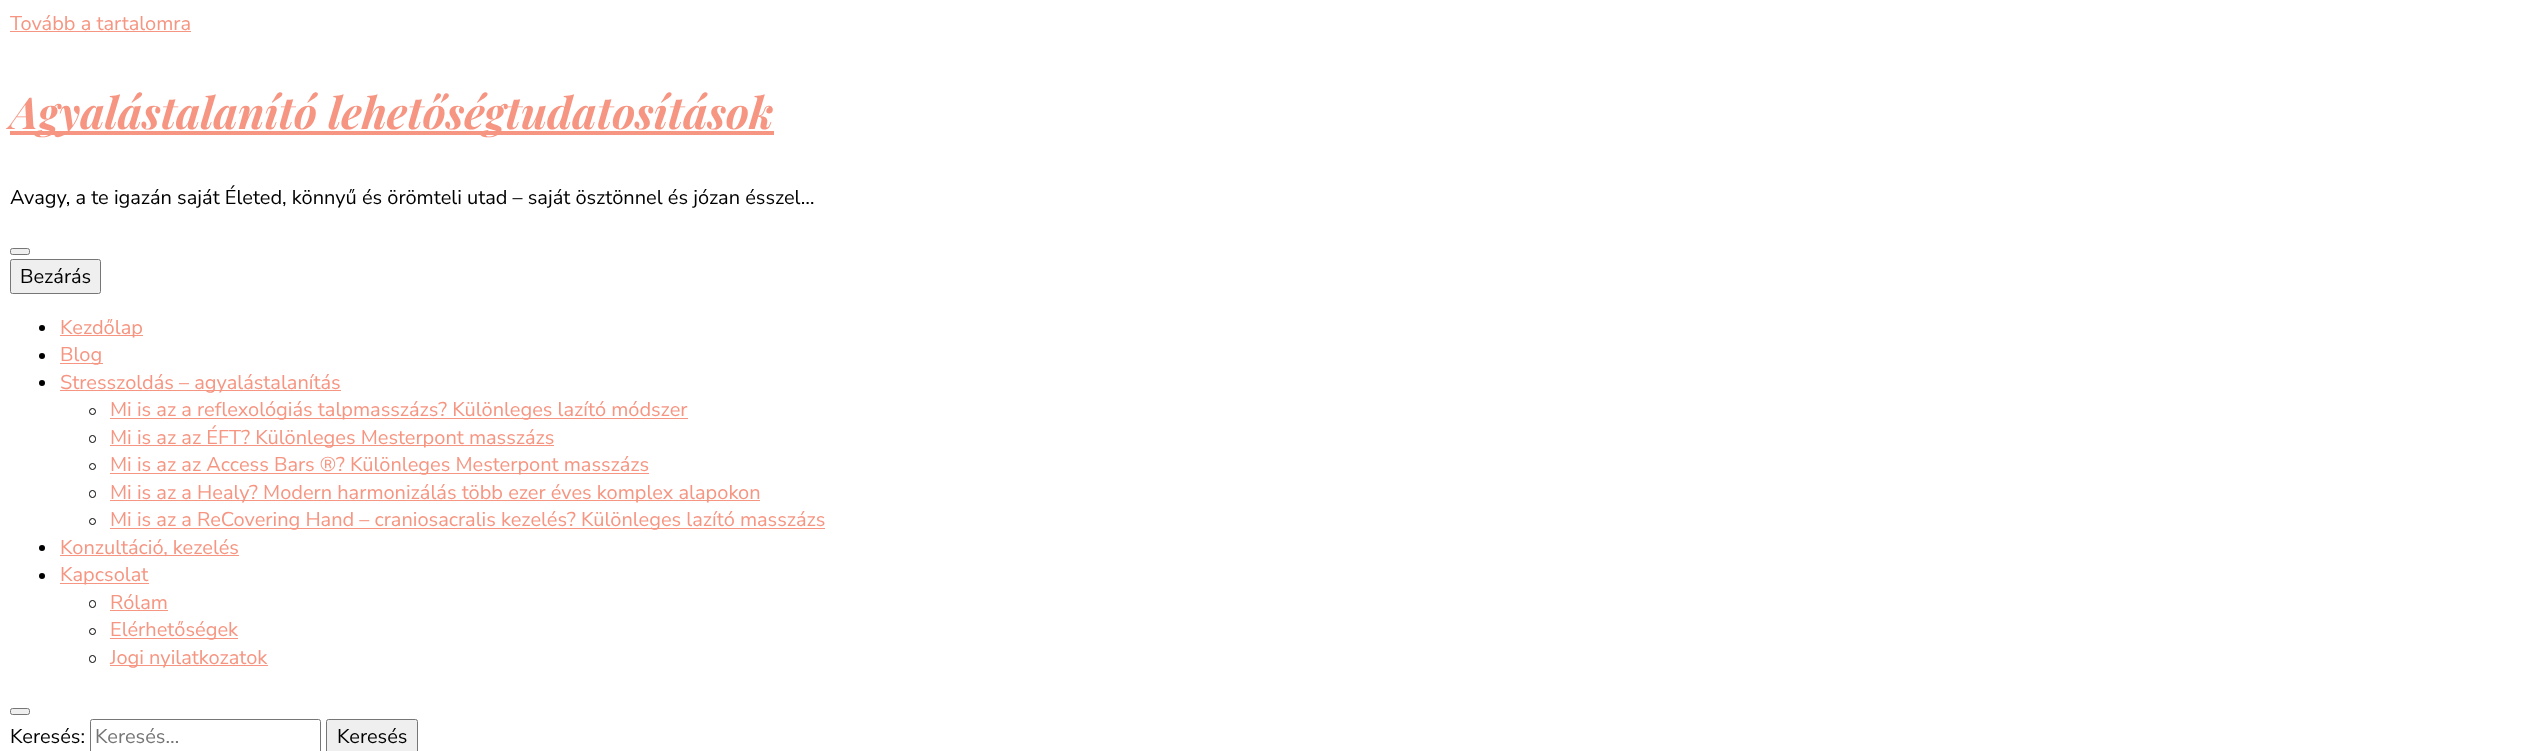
(async () => {
    const canvas = document.querySelector("canvas");
    canvas.width = 2529;
    canvas.height = 751;
    const context = canvas.getContext("2d");
    context.miterLimit = 4;
    context.fontKerning = "normal";
    function write(s, x, y, font, color) {
        context.font = font;
        context.fillStyle = color;
        context.fillText(s, x, y);
    }
    function block(x, y, w, h, color) {
        context.fillStyle = color;
        context.fillRect(x, y, w, h);
    }

    block(0, 0, 2529, 751, "rgb(255, 255, 255)");
    write("Tovább a tartalomra", 10, 30, "20px Nunito Sans", "rgb(246, 149, 129)");
    block(10, 31, 181, 1, "rgb(246, 149, 129)");
    block(10, 131, 764, 4, "rgb(246, 149, 129)");
    write("Agyalástalanító lehetőségtudatosítások", 10, 129, "italic bold 43.75px Playfair Display", "rgb(246, 149, 129)");
    write("Avagy, a te igazán saját Életed, könnyű és örömteli utad – saját ösztönnel és józan ésszel…", 10, 204, "20px Nunito Sans", "rgb(0, 0, 0)");
    context.fillStyle = "rgb(239, 239, 239)";
    context.beginPath();
    context.roundRect(10.5, 248.5, 19, 6, 2);
    context.fill();
    context.strokeStyle = "rgb(118, 118, 118)";
    context.stroke();
    context.beginPath();
    context.roundRect(10.5, 259.5, 90, 34, 2);
    context.fill();
    context.stroke();
    write("Bezárás", 20, 283, "20px Nunito Sans", "rgb(0, 0, 0)");
    context.beginPath();
    context.arc(42, 328, 3, 0, Math.PI * 2);
    context.fill();
    block(60, 335, 83, 1, "rgb(246, 149, 129)");
    write("Kezdőlap", 60, 334, "20px Nunito Sans", "rgb(246, 149, 129)");
    context.fillStyle = "rgb(0, 0, 0)";
    context.beginPath();
    context.arc(42, 356, 3, 0, Math.PI * 2);
    context.fill();
    block(60, 363, 43, 1, "rgb(246, 149, 129)");
    write("Blog", 60, 361, "20px Nunito Sans", "rgb(246, 149, 129)");
    context.fillStyle = "rgb(0, 0, 0)";
    context.beginPath();
    context.arc(42, 383, 3, 0, Math.PI * 2);
    context.fill();
    block(60, 390, 281, 1, "rgb(246, 149, 129)");
    write("Stresszoldás – agyalástalanítás", 60, 389, "20px Nunito Sans", "rgb(246, 149, 129)");
    context.beginPath();
    context.arc(92.5, 411.5, 3, 0, Math.PI * 2);
    context.strokeStyle = "rgb(0, 0, 0)";
    context.stroke();
    block(110, 418, 578, 1, "rgb(246, 149, 129)");
    write("Mi is az a reflexológiás talpmasszázs? Különleges lazító módszer", 110, 416, "20px Nunito Sans", "rgb(246, 149, 129)");
    context.beginPath();
    context.roundRect(89.5, 435.5, 6, 7, 3);
    context.stroke();
    block(110, 445, 444, 1, "rgb(246, 149, 129)");
    write("Mi is az az ÉFT? Különleges Mesterpont masszázs", 110, 444, "20px Nunito Sans", "rgb(246, 149, 129)");
    context.beginPath();
    context.arc(92.5, 466.5, 3, 0, Math.PI * 2);
    context.stroke();
    block(110, 473, 539, 1, "rgb(246, 149, 129)");
    write("Mi is az az Access Bars ®? Különleges Mesterpont masszázs", 110, 471, "20px Nunito Sans", "rgb(246, 149, 129)");
    context.beginPath();
    context.roundRect(89.5, 490.5, 6, 7, 3);
    context.stroke();
    block(110, 500, 650, 1, "rgb(246, 149, 129)");
    write("Mi is az a Healy? Modern harmonizálás több ezer éves komplex alapokon", 110, 499, "20px Nunito Sans", "rgb(246, 149, 129)");
    context.beginPath();
    context.arc(92.5, 521.5, 3, 0, Math.PI * 2);
    context.stroke();
    block(110, 528, 715, 1, "rgb(246, 149, 129)");
    write("Mi is az a ReCovering Hand – craniosacralis kezelés? Különleges lazító masszázs", 110, 526, "20px Nunito Sans", "rgb(246, 149, 129)");
    context.fillStyle = "rgb(0, 0, 0)";
    context.beginPath();
    context.arc(42, 548, 3, 0, Math.PI * 2);
    context.fill();
    block(60, 555, 179, 1, "rgb(246, 149, 129)");
    write("Konzultáció, kezelés", 60, 554, "20px Nunito Sans", "rgb(246, 149, 129)");
    context.fillStyle = "rgb(0, 0, 0)";
    context.beginPath();
    context.arc(42, 576, 3, 0, Math.PI * 2);
    context.fill();
    block(60, 583, 89, 1, "rgb(246, 149, 129)");
    write("Kapcsolat", 60, 581, "20px Nunito Sans", "rgb(246, 149, 129)");
    context.beginPath();
    context.roundRect(89.5, 600.5, 6, 7, 3);
    context.stroke();
    write("Rólam", 110, 609, "20px Nunito Sans", "rgb(246, 149, 129)");
    block(110, 610, 58, 1, "rgb(246, 149, 129)");
    context.beginPath();
    context.arc(92.5, 631.5, 3, 0, Math.PI * 2);
    context.stroke();
    block(110, 638, 128, 1, "rgb(246, 149, 129)");
    write("Elérhetőségek", 110, 636, "20px Nunito Sans", "rgb(246, 149, 129)");
    context.beginPath();
    context.roundRect(89.5, 655.5, 6, 7, 3);
    context.stroke();
    block(110, 665, 158, 1, "rgb(246, 149, 129)");
    write("Jogi nyilatkozatok", 110, 664, "20px Nunito Sans", "rgb(246, 149, 129)");
    context.fillStyle = "rgb(239, 239, 239)";
    context.beginPath();
    context.roundRect(10.5, 708.5, 19, 6, 2);
    context.fill();
    context.strokeStyle = "rgb(118, 118, 118)";
    context.stroke();
    write("Keresés:", 10, 743, "20px Nunito Sans", "rgb(0, 0, 0)");
    context.beginPath();
    context.roundRect(90.5, 719.5, 230, 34, 2);
    context.stroke();
    write("Keresés…", 95, 743, "20px Nunito Sans", "rgb(117, 117, 117)");
    context.fillStyle = "rgb(239, 239, 239)";
    context.beginPath();
    context.roundRect(326.5, 719.5, 91, 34, 2);
    context.fill();
    context.stroke();
    write("Keresés", 337, 743, "20px Nunito Sans", "rgb(0, 0, 0)");
})();
